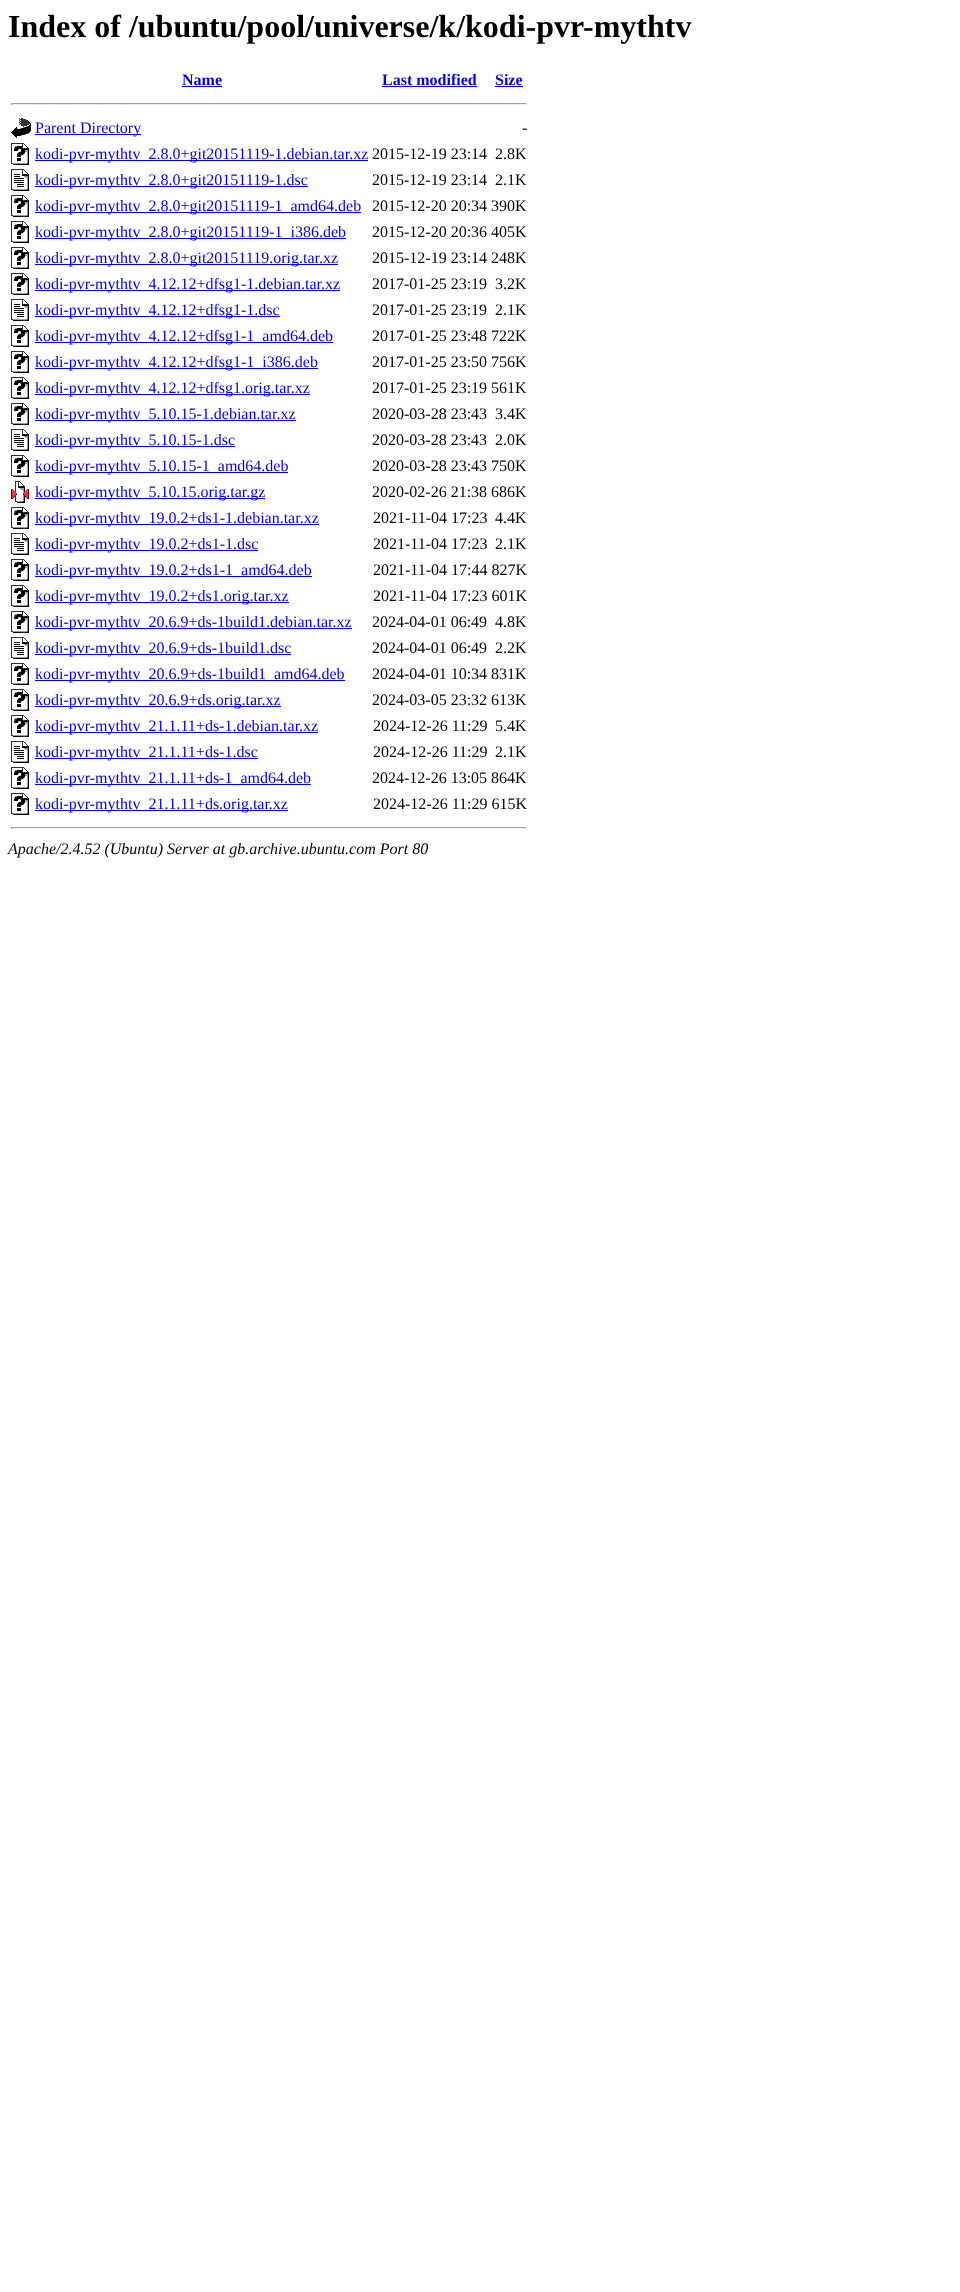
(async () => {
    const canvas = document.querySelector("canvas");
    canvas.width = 960;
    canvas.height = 2292;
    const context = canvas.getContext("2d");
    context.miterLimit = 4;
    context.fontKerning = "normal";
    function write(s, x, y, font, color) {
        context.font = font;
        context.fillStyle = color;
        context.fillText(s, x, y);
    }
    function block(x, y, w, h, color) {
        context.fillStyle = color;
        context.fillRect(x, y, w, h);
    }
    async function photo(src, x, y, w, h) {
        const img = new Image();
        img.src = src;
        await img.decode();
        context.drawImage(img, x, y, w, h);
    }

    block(0, 0, 960, 2292, "rgb(255, 255, 255)");
    write("Index of /ubuntu/pool/universe/k/kodi-pvr-mythtv", 8, 37, "bold 32px Liberation Serif", "rgb(0, 0, 0)");
    write("Name", 182, 85, "bold 16px Liberation Serif", "rgb(0, 0, 238)");
    block(182, 86, 40, 1, "rgb(0, 0, 238)");
    write("Last modified", 382, 85, "bold 16px Liberation Serif", "rgb(0, 0, 238)");
    block(382, 86, 95, 1, "rgb(0, 0, 238)");
    write("Size", 495, 85, "bold 16px Liberation Serif", "rgb(0, 0, 238)");
    block(495, 86, 28, 1, "rgb(0, 0, 238)");
    block(11, 103, 516, 1, "rgb(159, 159, 159)");
    block(526, 103, 1, 2, "rgb(238, 238, 238)");
    block(11, 104, 516, 1, "rgb(238, 238, 238)");
    block(11, 103, 1, 2, "rgb(159, 159, 159)");
    await photo("media/1.png", 11, 118, 20, 20);
    block(35, 134, 106, 1, "rgb(0, 0, 238)");
    write("Parent Directory", 35, 133, "16px Liberation Serif", "rgb(0, 0, 238)");
    write("-", 522, 133, "16px Liberation Serif", "rgb(0, 0, 0)");
    await photo("media/2.png", 11, 143, 18, 22);
    block(35, 160, 333, 1, "rgb(0, 0, 238)");
    write("kodi-pvr-mythtv_2.8.0+git20151119-1.debian.tar.xz", 35, 159, "16px Liberation Serif", "rgb(0, 0, 238)");
    write("2015-12-19 23:14", 372, 159, "16px Liberation Serif", "rgb(0, 0, 0)");
    write("2.8K", 495, 159, "16px Liberation Serif", "rgb(0, 0, 0)");
    await photo("media/3.png", 11, 169, 18, 22);
    block(35, 186, 273, 1, "rgb(0, 0, 238)");
    write("kodi-pvr-mythtv_2.8.0+git20151119-1.dsc", 35, 185, "16px Liberation Serif", "rgb(0, 0, 238)");
    write("2015-12-19 23:14", 372, 185, "16px Liberation Serif", "rgb(0, 0, 0)");
    write("2.1K", 495, 185, "16px Liberation Serif", "rgb(0, 0, 0)");
    await photo("media/2.png", 11, 195, 18, 22);
    block(35, 212, 326, 1, "rgb(0, 0, 238)");
    write("kodi-pvr-mythtv_2.8.0+git20151119-1_amd64.deb", 35, 211, "16px Liberation Serif", "rgb(0, 0, 238)");
    write("2015-12-20 20:34 390K", 372, 211, "16px Liberation Serif", "rgb(0, 0, 0)");
    await photo("media/2.png", 11, 221, 18, 22);
    block(35, 238, 311, 1, "rgb(0, 0, 238)");
    write("kodi-pvr-mythtv_2.8.0+git20151119-1_i386.deb", 35, 237, "16px Liberation Serif", "rgb(0, 0, 238)");
    write("2015-12-20 20:36 405K", 372, 237, "16px Liberation Serif", "rgb(0, 0, 0)");
    await photo("media/2.png", 11, 247, 18, 22);
    block(35, 264, 303, 1, "rgb(0, 0, 238)");
    write("kodi-pvr-mythtv_2.8.0+git20151119.orig.tar.xz", 35, 263, "16px Liberation Serif", "rgb(0, 0, 238)");
    write("2015-12-19 23:14 248K", 372, 263, "16px Liberation Serif", "rgb(0, 0, 0)");
    await photo("media/2.png", 11, 273, 18, 22);
    block(35, 290, 305, 1, "rgb(0, 0, 238)");
    write("kodi-pvr-mythtv_4.12.12+dfsg1-1.debian.tar.xz", 35, 289, "16px Liberation Serif", "rgb(0, 0, 238)");
    write("2017-01-25 23:19", 372, 289, "16px Liberation Serif", "rgb(0, 0, 0)");
    write("3.2K", 495, 289, "16px Liberation Serif", "rgb(0, 0, 0)");
    await photo("media/3.png", 11, 299, 18, 22);
    block(35, 316, 245, 1, "rgb(0, 0, 238)");
    write("kodi-pvr-mythtv_4.12.12+dfsg1-1.dsc", 35, 315, "16px Liberation Serif", "rgb(0, 0, 238)");
    write("2017-01-25 23:19", 372, 315, "16px Liberation Serif", "rgb(0, 0, 0)");
    write("2.1K", 495, 315, "16px Liberation Serif", "rgb(0, 0, 0)");
    await photo("media/2.png", 11, 325, 18, 22);
    block(35, 342, 298, 1, "rgb(0, 0, 238)");
    write("kodi-pvr-mythtv_4.12.12+dfsg1-1_amd64.deb", 35, 341, "16px Liberation Serif", "rgb(0, 0, 238)");
    write("2017-01-25 23:48 722K", 372, 341, "16px Liberation Serif", "rgb(0, 0, 0)");
    await photo("media/2.png", 11, 351, 18, 22);
    block(35, 368, 283, 1, "rgb(0, 0, 238)");
    write("kodi-pvr-mythtv_4.12.12+dfsg1-1_i386.deb", 35, 367, "16px Liberation Serif", "rgb(0, 0, 238)");
    write("2017-01-25 23:50 756K", 372, 367, "16px Liberation Serif", "rgb(0, 0, 0)");
    await photo("media/2.png", 11, 377, 18, 22);
    block(35, 394, 275, 1, "rgb(0, 0, 238)");
    write("kodi-pvr-mythtv_4.12.12+dfsg1.orig.tar.xz", 35, 393, "16px Liberation Serif", "rgb(0, 0, 238)");
    write("2017-01-25 23:19 561K", 372, 393, "16px Liberation Serif", "rgb(0, 0, 0)");
    await photo("media/2.png", 11, 403, 18, 22);
    block(35, 420, 261, 1, "rgb(0, 0, 238)");
    write("kodi-pvr-mythtv_5.10.15-1.debian.tar.xz", 35, 419, "16px Liberation Serif", "rgb(0, 0, 238)");
    write("2020-03-28 23:43", 372, 419, "16px Liberation Serif", "rgb(0, 0, 0)");
    write("3.4K", 495, 419, "16px Liberation Serif", "rgb(0, 0, 0)");
    await photo("media/3.png", 11, 429, 18, 22);
    block(35, 446, 200, 1, "rgb(0, 0, 238)");
    write("kodi-pvr-mythtv_5.10.15-1.dsc", 35, 445, "16px Liberation Serif", "rgb(0, 0, 238)");
    write("2020-03-28 23:43", 372, 445, "16px Liberation Serif", "rgb(0, 0, 0)");
    write("2.0K", 495, 445, "16px Liberation Serif", "rgb(0, 0, 0)");
    await photo("media/2.png", 11, 455, 18, 22);
    block(35, 472, 253, 1, "rgb(0, 0, 238)");
    write("kodi-pvr-mythtv_5.10.15-1_amd64.deb", 35, 471, "16px Liberation Serif", "rgb(0, 0, 238)");
    write("2020-03-28 23:43 750K", 372, 471, "16px Liberation Serif", "rgb(0, 0, 0)");
    await photo("media/4.png", 11, 481, 18, 22);
    block(35, 498, 230, 1, "rgb(0, 0, 238)");
    write("kodi-pvr-mythtv_5.10.15.orig.tar.gz", 35, 497, "16px Liberation Serif", "rgb(0, 0, 238)");
    write("2020-02-26 21:38 686K", 372, 497, "16px Liberation Serif", "rgb(0, 0, 0)");
    await photo("media/2.png", 11, 507, 18, 22);
    block(35, 524, 284, 1, "rgb(0, 0, 238)");
    write("kodi-pvr-mythtv_19.0.2+ds1-1.debian.tar.xz", 35, 523, "16px Liberation Serif", "rgb(0, 0, 238)");
    write("2021-11-04 17:23", 373, 523, "16px Liberation Serif", "rgb(0, 0, 0)");
    write("4.4K", 495, 523, "16px Liberation Serif", "rgb(0, 0, 0)");
    await photo("media/3.png", 11, 533, 18, 22);
    block(35, 550, 223, 1, "rgb(0, 0, 238)");
    write("kodi-pvr-mythtv_19.0.2+ds1-1.dsc", 35, 549, "16px Liberation Serif", "rgb(0, 0, 238)");
    write("2021-11-04 17:23", 373, 549, "16px Liberation Serif", "rgb(0, 0, 0)");
    write("2.1K", 495, 549, "16px Liberation Serif", "rgb(0, 0, 0)");
    await photo("media/2.png", 11, 559, 18, 22);
    block(35, 576, 277, 1, "rgb(0, 0, 238)");
    write("kodi-pvr-mythtv_19.0.2+ds1-1_amd64.deb", 35, 575, "16px Liberation Serif", "rgb(0, 0, 238)");
    write("2021-11-04 17:44 827K", 373, 575, "16px Liberation Serif", "rgb(0, 0, 0)");
    await photo("media/2.png", 11, 585, 18, 22);
    block(35, 602, 254, 1, "rgb(0, 0, 238)");
    write("kodi-pvr-mythtv_19.0.2+ds1.orig.tar.xz", 35, 601, "16px Liberation Serif", "rgb(0, 0, 238)");
    write("2021-11-04 17:23 601K", 373, 601, "16px Liberation Serif", "rgb(0, 0, 0)");
    await photo("media/2.png", 11, 611, 18, 22);
    block(35, 628, 317, 1, "rgb(0, 0, 238)");
    write("kodi-pvr-mythtv_20.6.9+ds-1build1.debian.tar.xz", 35, 627, "16px Liberation Serif", "rgb(0, 0, 238)");
    write("2024-04-01 06:49", 372, 627, "16px Liberation Serif", "rgb(0, 0, 0)");
    write("4.8K", 495, 627, "16px Liberation Serif", "rgb(0, 0, 0)");
    await photo("media/3.png", 11, 637, 18, 22);
    block(35, 654, 256, 1, "rgb(0, 0, 238)");
    write("kodi-pvr-mythtv_20.6.9+ds-1build1.dsc", 35, 653, "16px Liberation Serif", "rgb(0, 0, 238)");
    write("2024-04-01 06:49", 372, 653, "16px Liberation Serif", "rgb(0, 0, 0)");
    write("2.2K", 495, 653, "16px Liberation Serif", "rgb(0, 0, 0)");
    await photo("media/2.png", 11, 663, 18, 22);
    block(35, 680, 310, 1, "rgb(0, 0, 238)");
    write("kodi-pvr-mythtv_20.6.9+ds-1build1_amd64.deb", 35, 679, "16px Liberation Serif", "rgb(0, 0, 238)");
    write("2024-04-01 10:34 831K", 372, 679, "16px Liberation Serif", "rgb(0, 0, 0)");
    await photo("media/2.png", 11, 689, 18, 22);
    block(35, 706, 246, 1, "rgb(0, 0, 238)");
    write("kodi-pvr-mythtv_20.6.9+ds.orig.tar.xz", 35, 705, "16px Liberation Serif", "rgb(0, 0, 238)");
    write("2024-03-05 23:32 613K", 372, 705, "16px Liberation Serif", "rgb(0, 0, 0)");
    await photo("media/2.png", 11, 715, 18, 22);
    block(35, 732, 283, 1, "rgb(0, 0, 238)");
    write("kodi-pvr-mythtv_21.1.11+ds-1.debian.tar.xz", 35, 731, "16px Liberation Serif", "rgb(0, 0, 238)");
    write("2024-12-26 11:29", 373, 731, "16px Liberation Serif", "rgb(0, 0, 0)");
    write("5.4K", 495, 731, "16px Liberation Serif", "rgb(0, 0, 0)");
    await photo("media/3.png", 11, 741, 18, 22);
    block(35, 758, 223, 1, "rgb(0, 0, 238)");
    write("kodi-pvr-mythtv_21.1.11+ds-1.dsc", 35, 757, "16px Liberation Serif", "rgb(0, 0, 238)");
    write("2024-12-26 11:29", 373, 757, "16px Liberation Serif", "rgb(0, 0, 0)");
    write("2.1K", 495, 757, "16px Liberation Serif", "rgb(0, 0, 0)");
    await photo("media/2.png", 11, 767, 18, 22);
    block(35, 784, 276, 1, "rgb(0, 0, 238)");
    write("kodi-pvr-mythtv_21.1.11+ds-1_amd64.deb", 35, 783, "16px Liberation Serif", "rgb(0, 0, 238)");
    write("2024-12-26 13:05 864K", 372, 783, "16px Liberation Serif", "rgb(0, 0, 0)");
    await photo("media/2.png", 11, 793, 18, 22);
    block(35, 810, 253, 1, "rgb(0, 0, 238)");
    write("kodi-pvr-mythtv_21.1.11+ds.orig.tar.xz", 35, 809, "16px Liberation Serif", "rgb(0, 0, 238)");
    write("2024-12-26 11:29 615K", 373, 809, "16px Liberation Serif", "rgb(0, 0, 0)");
    block(11, 827, 516, 1, "rgb(159, 159, 159)");
    block(526, 827, 1, 2, "rgb(238, 238, 238)");
    block(11, 828, 516, 1, "rgb(238, 238, 238)");
    block(11, 827, 1, 2, "rgb(159, 159, 159)");
    write("Apache/2.4.52 (Ubuntu) Server at gb.archive.ubuntu.com Port 80", 8, 854, "italic 16px Liberation Serif", "rgb(0, 0, 0)");
})();
